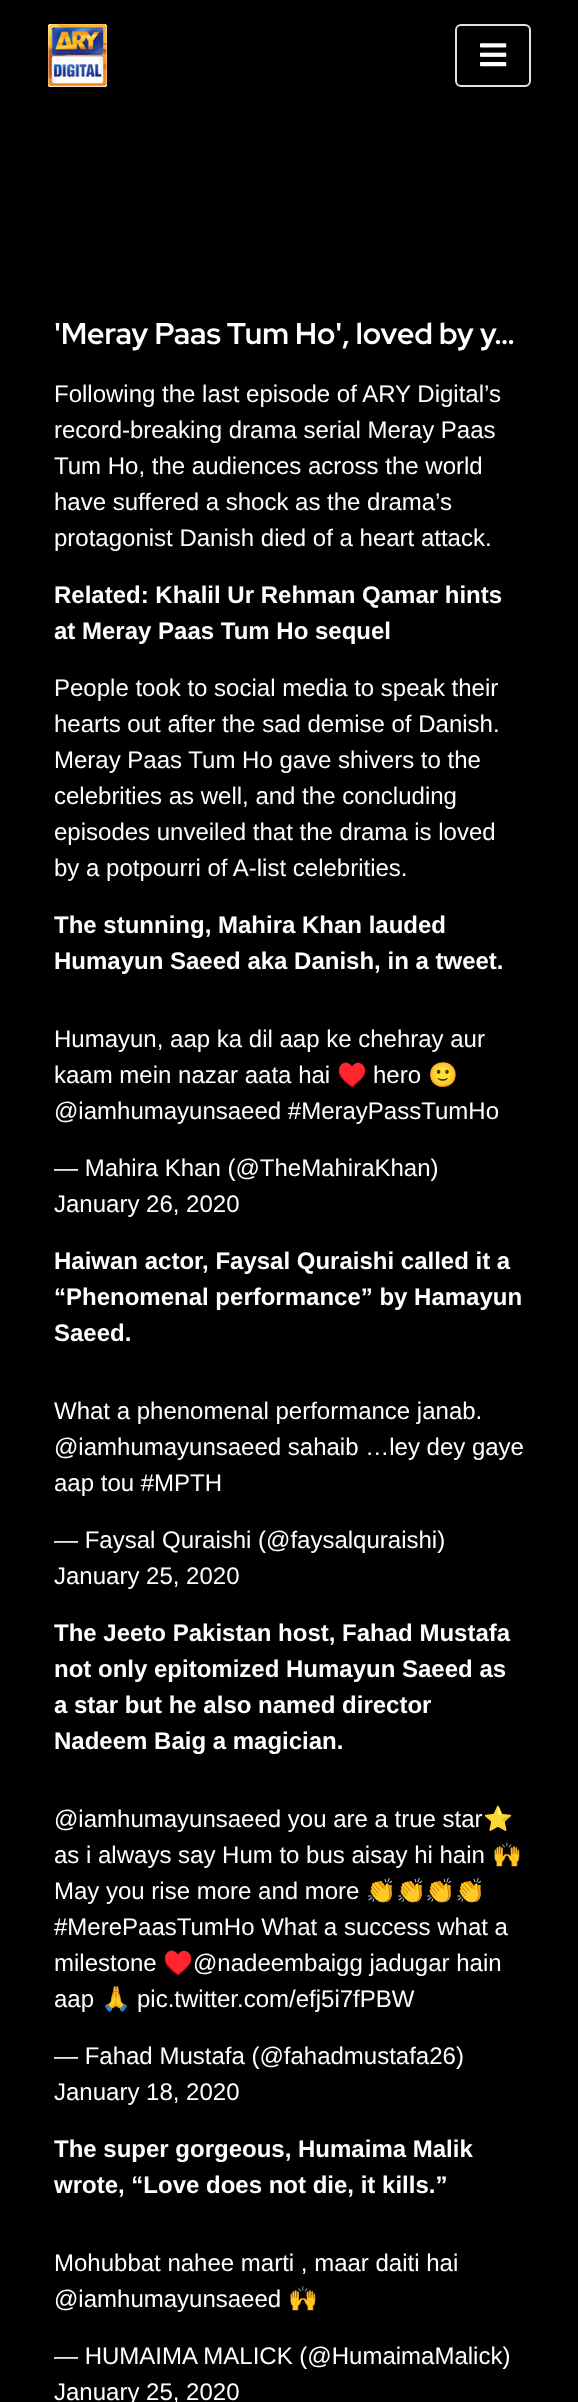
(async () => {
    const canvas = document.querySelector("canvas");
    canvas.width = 578;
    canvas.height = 2402;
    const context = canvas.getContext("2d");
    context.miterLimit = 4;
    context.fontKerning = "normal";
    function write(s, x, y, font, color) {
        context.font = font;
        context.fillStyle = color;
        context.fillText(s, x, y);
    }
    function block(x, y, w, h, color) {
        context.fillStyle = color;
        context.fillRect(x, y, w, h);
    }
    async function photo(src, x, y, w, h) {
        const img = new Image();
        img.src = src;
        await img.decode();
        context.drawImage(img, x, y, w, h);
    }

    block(0, 0, 578, 2402, "rgb(0, 0, 0)");
    await photo("media/1.png", 48, 24, 59, 63);
    context.beginPath();
    context.roundRect(456, 25, 74, 61, 5);
    context.strokeStyle = "rgb(222, 226, 230)";
    context.lineWidth = 2;
    context.stroke();
    await photo("media/2.png", 480, 43, 27, 24);
    write("'Meray Paas Tum Ho', loved by y…", 54, 344, "bold 30px Red Hat Display", "rgb(255, 255, 255)");
    write("Following the last episode of ARY Digital’s", 54, 402, "24px Liberation Sans", "rgb(255, 255, 255)");
    write("record-breaking drama serial Meray Paas", 54, 438, "24px Liberation Sans", "rgb(255, 255, 255)");
    write("Tum Ho, the audiences across the world", 54, 474, "24px Liberation Sans", "rgb(255, 255, 255)");
    write("have suffered a shock as the drama’s", 54, 510, "24px Liberation Sans", "rgb(255, 255, 255)");
    write("protagonist Danish died of a heart attack.", 54, 546, "24px Liberation Sans", "rgb(255, 255, 255)");
    write("Related: Khalil Ur Rehman Qamar hints", 54, 603, "bold 24px Liberation Sans", "rgb(255, 255, 255)");
    write("at Meray Paas Tum Ho sequel", 54, 639, "bold 24px Liberation Sans", "rgb(255, 255, 255)");
    write("People took to social media to speak their", 54, 696, "24px Liberation Sans", "rgb(255, 255, 255)");
    write("hearts out after the sad demise of Danish.", 54, 732, "24px Liberation Sans", "rgb(255, 255, 255)");
    write("Meray Paas Tum Ho gave shivers to the", 54, 768, "24px Liberation Sans", "rgb(255, 255, 255)");
    write("celebrities as well, and the concluding", 54, 804, "24px Liberation Sans", "rgb(255, 255, 255)");
    write("episodes unveiled that the drama is loved", 54, 840, "24px Liberation Sans", "rgb(255, 255, 255)");
    write("by a potpourri of A-list celebrities.", 54, 876, "24px Liberation Sans", "rgb(255, 255, 255)");
    write("The stunning, Mahira Khan lauded", 54, 933, "bold 24px Liberation Sans", "rgb(255, 255, 255)");
    write("Humayun Saeed aka Danish, in a tweet.", 54, 969, "bold 24px Liberation Sans", "rgb(255, 255, 255)");
    write("Humayun, aap ka dil aap ke chehray aur", 54, 1047, "24px Liberation Sans", "rgb(255, 255, 255)");
    write("kaam mein nazar aata hai", 54, 1083, "24px Liberation Sans", "rgb(255, 255, 255)");
    write("♥️", 337, 1083, "24px Noto Color Emoji", "rgb(255, 255, 255)");
    write("hero", 373, 1083, "24px Liberation Sans", "rgb(255, 255, 255)");
    write("🙂", 428, 1083, "24px Noto Color Emoji", "rgb(255, 255, 255)");
    write("@iamhumayunsaeed #MerayPassTumHo", 54, 1119, "24px Liberation Sans", "rgb(255, 255, 255)");
    write("— Mahira Khan (@TheMahiraKhan)", 54, 1176, "24px Liberation Sans", "rgb(255, 255, 255)");
    write("January 26, 2020", 54, 1212, "24px Liberation Sans", "rgb(255, 255, 255)");
    write("Haiwan actor, Faysal Quraishi called it a", 54, 1269, "bold 24px Liberation Sans", "rgb(255, 255, 255)");
    write("“Phenomenal performance” by Hamayun", 54, 1305, "bold 24px Liberation Sans", "rgb(255, 255, 255)");
    write("Saeed.", 54, 1341, "bold 24px Liberation Sans", "rgb(255, 255, 255)");
    write("What a phenomenal performance janab.", 54, 1419, "24px Liberation Sans", "rgb(255, 255, 255)");
    write("@iamhumayunsaeed sahaib …ley dey gaye", 54, 1455, "24px Liberation Sans", "rgb(255, 255, 255)");
    write("aap tou #MPTH", 54, 1491, "24px Liberation Sans", "rgb(255, 255, 255)");
    write("— Faysal Quraishi (@faysalquraishi)", 54, 1548, "24px Liberation Sans", "rgb(255, 255, 255)");
    write("January 25, 2020", 54, 1584, "24px Liberation Sans", "rgb(255, 255, 255)");
    write("The Jeeto Pakistan host, Fahad Mustafa", 54, 1641, "bold 24px Liberation Sans", "rgb(255, 255, 255)");
    write("not only epitomized Humayun Saeed as", 54, 1677, "bold 24px Liberation Sans", "rgb(255, 255, 255)");
    write("a star but he also named director", 54, 1713, "bold 24px Liberation Sans", "rgb(255, 255, 255)");
    write("Nadeem Baig a magician.", 54, 1749, "bold 24px Liberation Sans", "rgb(255, 255, 255)");
    write("@iamhumayunsaeed you are a true star", 54, 1827, "24px Liberation Sans", "rgb(255, 255, 255)");
    write("⭐️", 483, 1827, "24px Noto Color Emoji", "rgb(255, 255, 255)");
    write("as i always say Hum to bus aisay hi hain", 54, 1863, "24px Liberation Sans", "rgb(255, 255, 255)");
    write("🙌", 492, 1863, "24px Noto Color Emoji", "rgb(255, 255, 255)");
    write("May you rise more and more", 54, 1899, "24px Liberation Sans", "rgb(255, 255, 255)");
    write("👏👏👏👏", 366, 1899, "24px Noto Color Emoji", "rgb(255, 255, 255)");
    write("#MerePaasTumHo What a success what a", 54, 1935, "24px Liberation Sans", "rgb(255, 255, 255)");
    write("milestone", 54, 1971, "24px Liberation Sans", "rgb(255, 255, 255)");
    write("♥️", 163, 1971, "24px Noto Color Emoji", "rgb(255, 255, 255)");
    write("@nadeembaigg jadugar hain", 193, 1971, "24px Liberation Sans", "rgb(255, 255, 255)");
    write("aap", 54, 2007, "24px Liberation Sans", "rgb(255, 255, 255)");
    write("🙏", 101, 2007, "24px Noto Color Emoji", "rgb(255, 255, 255)");
    write("pic.twitter.com/efj5i7fPBW", 137, 2007, "24px Liberation Sans", "rgb(255, 255, 255)");
    write("— Fahad Mustafa (@fahadmustafa26)", 54, 2064, "24px Liberation Sans", "rgb(255, 255, 255)");
    write("January 18, 2020", 54, 2100, "24px Liberation Sans", "rgb(255, 255, 255)");
    write("The super gorgeous, Humaima Malik", 54, 2157, "bold 24px Liberation Sans", "rgb(255, 255, 255)");
    write("wrote, “Love does not die, it kills.”", 54, 2193, "bold 24px Liberation Sans", "rgb(255, 255, 255)");
    write("Mohubbat nahee marti , maar daiti hai", 54, 2271, "24px Liberation Sans", "rgb(255, 255, 255)");
    write("@iamhumayunsaeed", 54, 2307, "24px Liberation Sans", "rgb(255, 255, 255)");
    write("🙌", 288, 2307, "24px Noto Color Emoji", "rgb(255, 255, 255)");
    write("— HUMAIMA MALICK (@HumaimaMalick)", 54, 2364, "24px Liberation Sans", "rgb(255, 255, 255)");
    write("January 25, 2020", 54, 2400, "24px Liberation Sans", "rgb(255, 255, 255)");
})();
